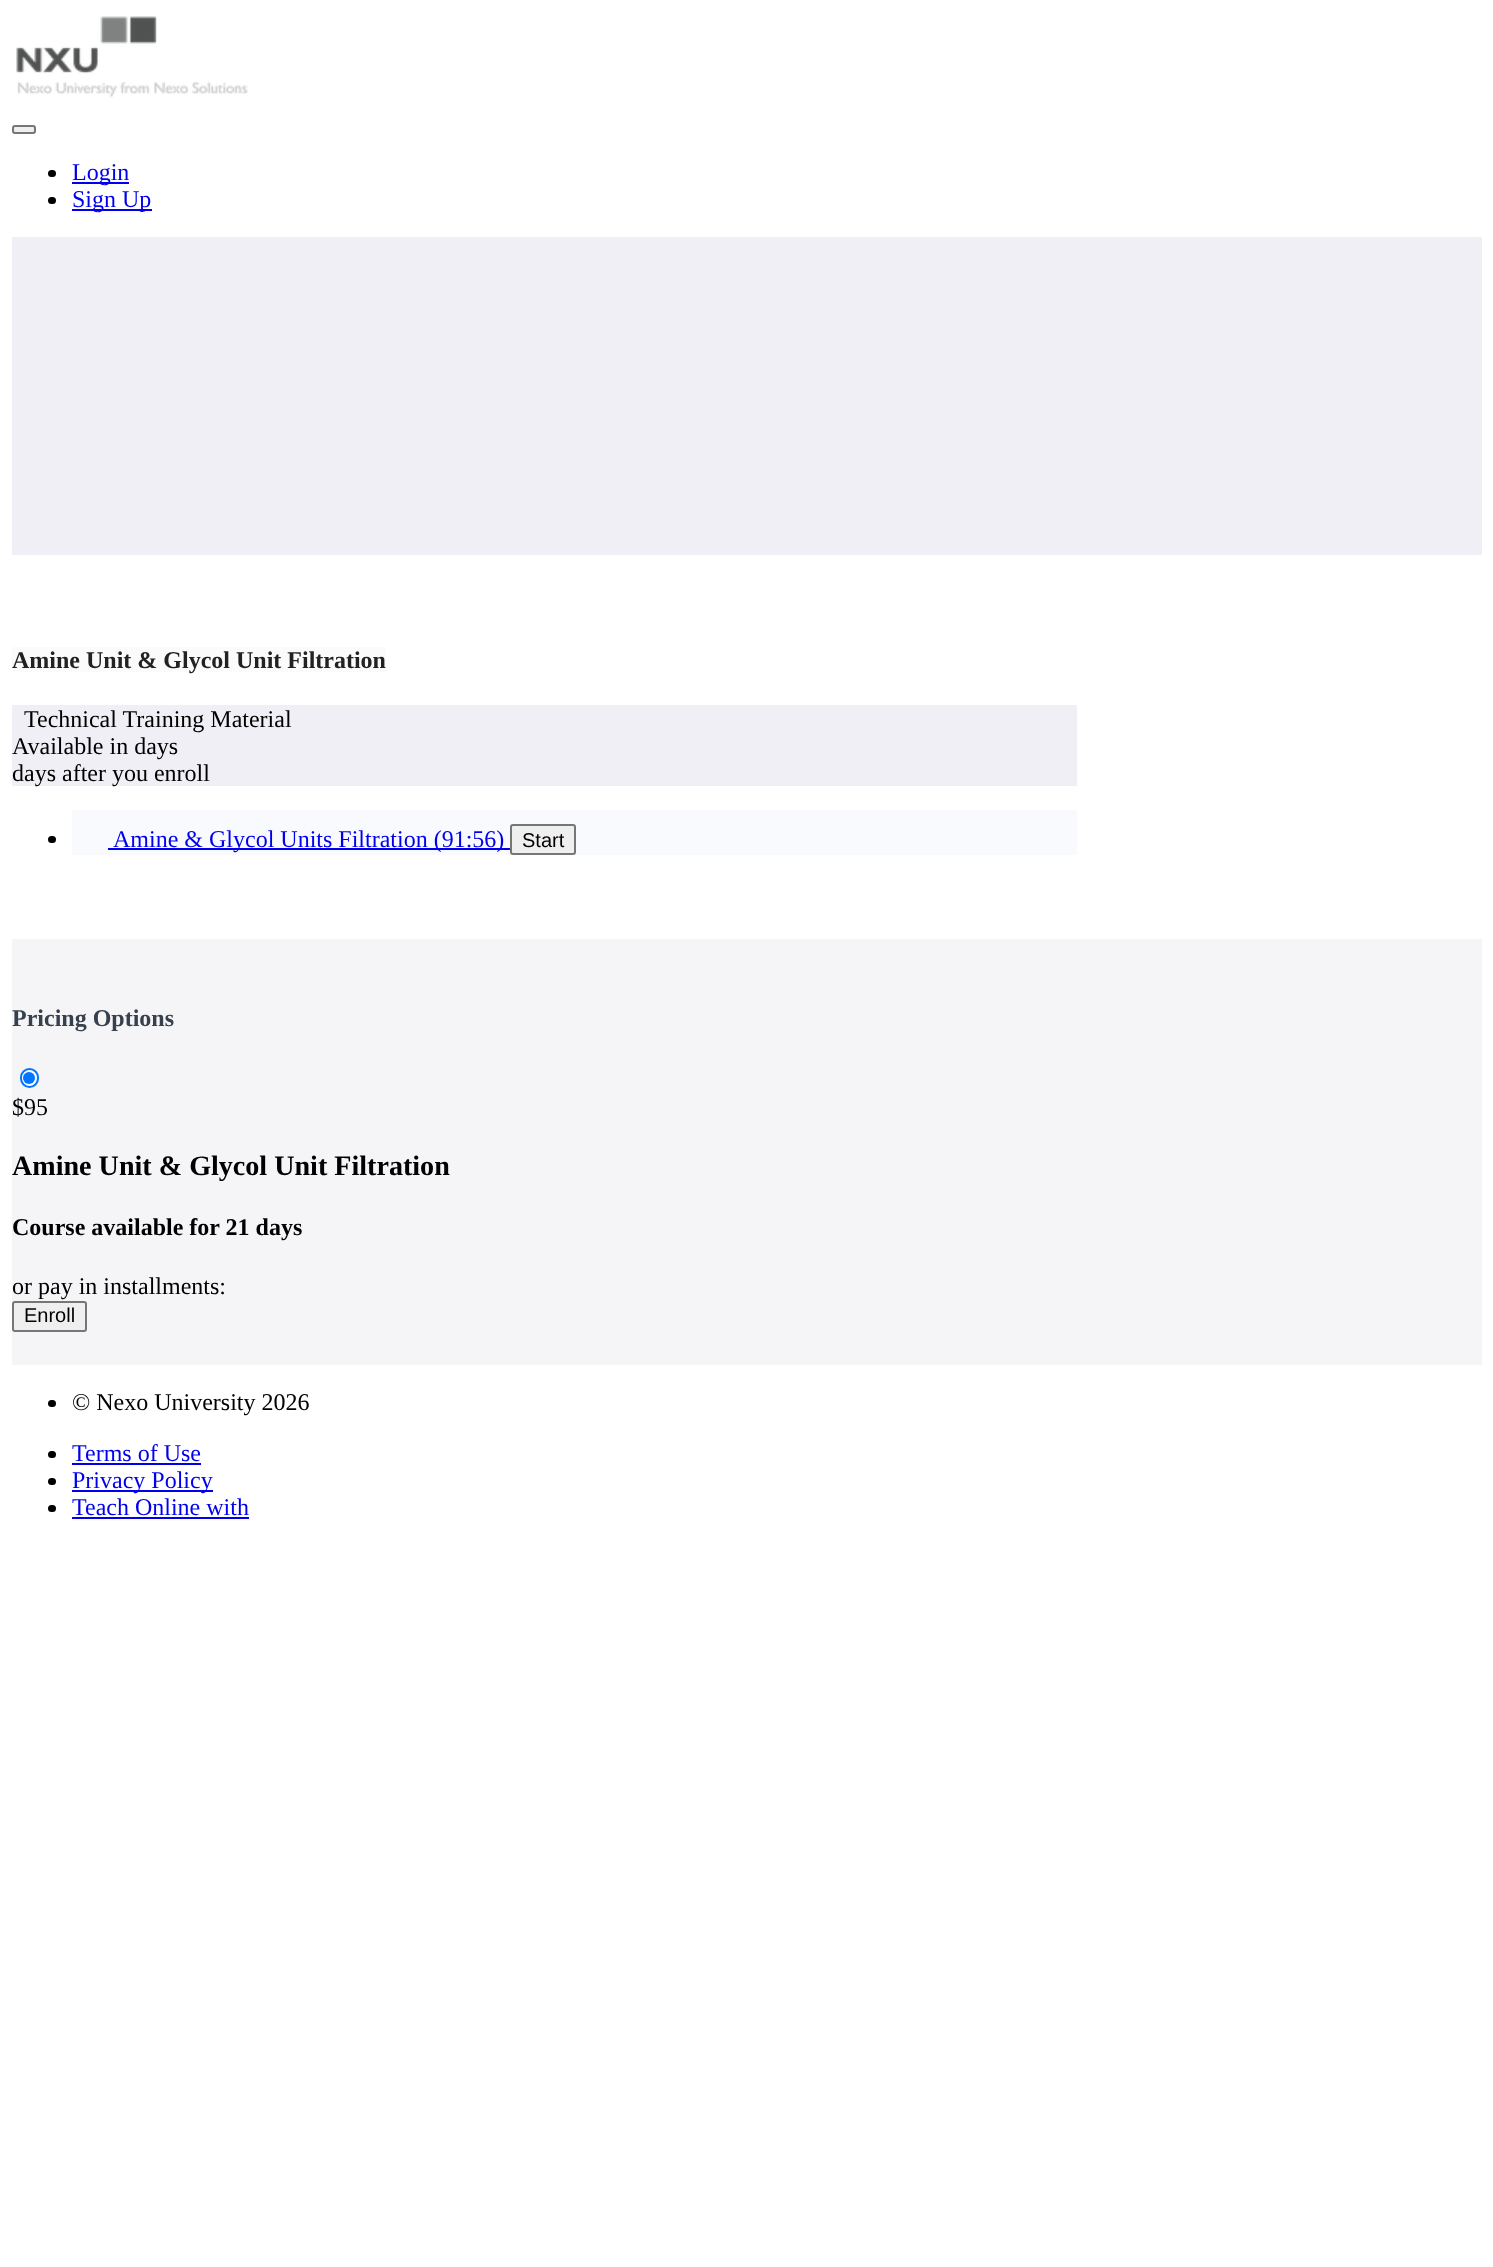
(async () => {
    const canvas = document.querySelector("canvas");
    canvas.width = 1493;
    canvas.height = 2267;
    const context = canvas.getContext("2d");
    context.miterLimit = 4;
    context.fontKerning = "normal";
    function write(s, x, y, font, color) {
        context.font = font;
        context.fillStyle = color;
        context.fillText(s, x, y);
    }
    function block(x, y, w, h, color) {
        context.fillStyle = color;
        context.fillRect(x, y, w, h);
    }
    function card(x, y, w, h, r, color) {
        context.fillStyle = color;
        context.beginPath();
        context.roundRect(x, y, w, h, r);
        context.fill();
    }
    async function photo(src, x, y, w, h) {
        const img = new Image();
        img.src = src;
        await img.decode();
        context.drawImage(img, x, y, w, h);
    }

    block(0, 0, 1493, 2267, "rgb(255, 255, 255)");
    await photo("media/1.png", 16, 16, 232, 82);
    context.fillStyle = "rgb(239, 239, 239)";
    context.beginPath();
    context.roundRect(13, 126, 22, 7, 2);
    context.fill();
    context.strokeStyle = "rgb(118, 118, 118)";
    context.lineWidth = 2;
    context.stroke();
    card(48, 170, 8, 7, 3.5, "rgb(0, 0, 0)");
    block(72, 182, 57, 2, "rgb(0, 0, 238)");
    write("Login", 72, 180, "24px Liberation Serif", "rgb(0, 0, 238)");
    card(48, 197, 8, 7, 3.5, "rgb(0, 0, 0)");
    block(72, 209, 80, 2, "rgb(0, 0, 238)");
    write("Sign Up", 72, 207, "24px Liberation Serif", "rgb(0, 0, 238)");
    block(12, 237, 1470, 318, "rgb(239, 239, 245)");
    block(12, 647, 374, 25, "rgb(251, 251, 251)");
    write("Amine Unit & Glycol Unit Filtration", 12, 668, "bold 24px Liberation Serif", "rgb(34, 34, 34)");
    block(12, 705, 1065, 81, "rgb(239, 239, 245)");
    write("Technical Training Material", 24, 727, "24px Liberation Serif", "rgb(0, 0, 0)");
    write("Available in days", 12, 754, "24px Liberation Serif", "rgb(0, 0, 0)");
    write("days after you enroll", 12, 781, "24px Liberation Serif", "rgb(0, 0, 0)");
    block(72, 810, 1005, 45, "rgb(249, 250, 253)");
    card(48, 836, 8, 7, 3.5, "rgb(0, 0, 0)");
    block(108, 848, 402, 2, "rgb(0, 0, 238)");
    write("Amine & Glycol Units Filtration (91:56)", 113, 847, "24px Liberation Serif", "rgb(0, 0, 238)");
    context.fillStyle = "rgb(239, 239, 239)";
    context.beginPath();
    context.roundRect(511, 825, 64, 29, 2);
    context.fill();
    context.stroke();
    write("Start", 522, 847, "20px Liberation Sans", "rgb(0, 0, 0)");
    block(12, 939, 1470, 426, "rgb(245, 245, 248)");
    write("Pricing Options", 12, 1026, "bold 24px Liberation Serif", "rgb(54, 65, 77)");
    context.fillStyle = "rgb(255, 255, 255)";
    context.beginPath();
    context.roundRect(21, 1069, 17, 18, 8.5);
    context.fill();
    context.strokeStyle = "rgb(0, 117, 255)";
    context.stroke();
    context.fillStyle = "rgb(0, 117, 255)";
    context.beginPath();
    context.arc(29, 1078, 6, 0, Math.PI * 2);
    context.fill();
    write("$95", 12, 1115, "24px Liberation Serif", "rgb(0, 0, 0)");
    write("Amine Unit & Glycol Unit Filtration", 12, 1175, "bold 28.1px Liberation Serif", "rgb(0, 0, 0)");
    write("Course available for 21 days", 12, 1235, "bold 24px Liberation Serif", "rgb(0, 0, 0)");
    write("or pay in installments:", 12, 1294, "24px Liberation Serif", "rgb(0, 0, 0)");
    context.fillStyle = "rgb(239, 239, 239)";
    context.beginPath();
    context.roundRect(13, 1302, 73, 29, 2);
    context.fill();
    context.strokeStyle = "rgb(118, 118, 118)";
    context.stroke();
    write("Enroll", 24, 1322, "20px Liberation Sans", "rgb(0, 0, 0)");
    card(48, 1400, 8, 7, 3.5, "rgb(0, 0, 0)");
    write("© Nexo University 2026", 72, 1410, "24px Liberation Serif", "rgb(0, 0, 0)");
    card(48, 1451, 8, 7, 3.5, "rgb(0, 0, 0)");
    write("Terms of Use", 72, 1461, "24px Liberation Serif", "rgb(0, 0, 238)");
    block(72, 1463, 129, 2, "rgb(0, 0, 238)");
    card(48, 1478, 8, 7, 3.5, "rgb(0, 0, 0)");
    block(72, 1490, 141, 2, "rgb(0, 0, 238)");
    write("Privacy Policy", 72, 1488, "24px Liberation Serif", "rgb(0, 0, 238)");
    card(48, 1505, 8, 7, 3.5, "rgb(0, 0, 0)");
    write("Teach Online with", 72, 1515, "24px Liberation Serif", "rgb(0, 0, 238)");
    block(72, 1517, 177, 2, "rgb(0, 0, 238)");
})();
